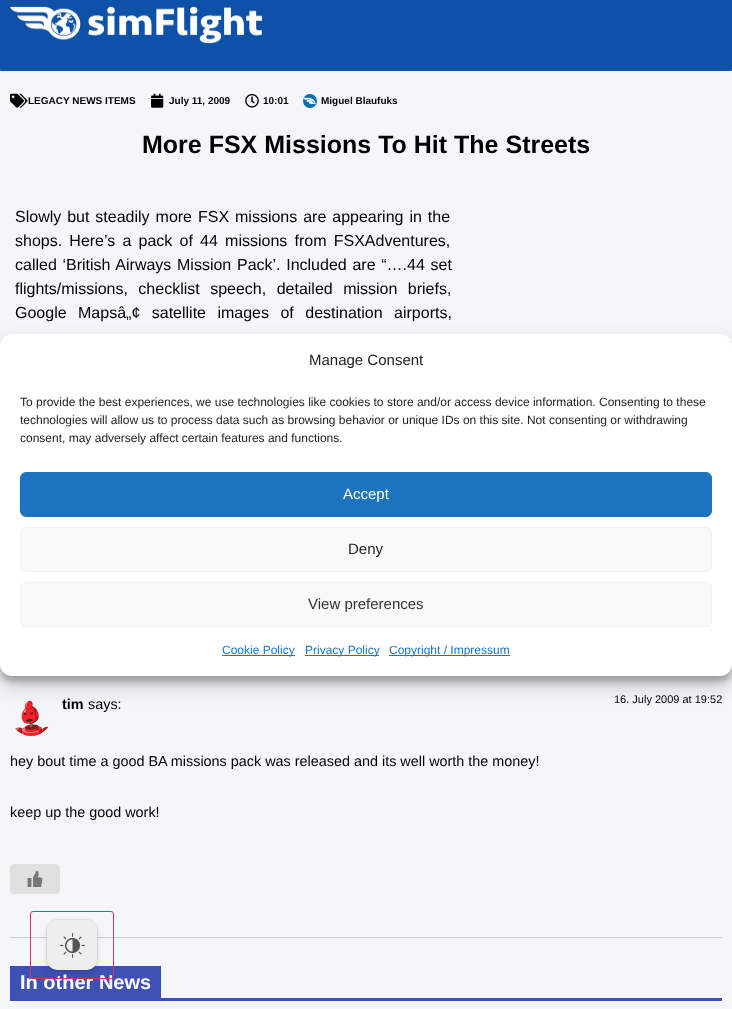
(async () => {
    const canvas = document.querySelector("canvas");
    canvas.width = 732;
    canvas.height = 1009;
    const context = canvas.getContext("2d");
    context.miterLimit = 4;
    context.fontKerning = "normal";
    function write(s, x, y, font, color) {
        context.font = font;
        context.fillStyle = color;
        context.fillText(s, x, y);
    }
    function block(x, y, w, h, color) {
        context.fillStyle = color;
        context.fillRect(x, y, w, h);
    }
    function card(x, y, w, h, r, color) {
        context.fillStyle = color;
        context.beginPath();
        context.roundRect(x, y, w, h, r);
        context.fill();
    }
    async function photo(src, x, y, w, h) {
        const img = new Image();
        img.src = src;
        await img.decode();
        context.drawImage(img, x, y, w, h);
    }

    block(0, 0, 732, 1009, "rgb(245, 246, 249)");
    card(0, -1, 732, 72, 1, "rgb(14, 81, 168)");
    await photo("media/1.png", 10, 6, 252, 38);
    await photo("media/2.png", 10, 93, 18, 15);
    write("LEGACY NEWS ITEMS", 28, 104, "bold 10px Liberation Sans", "rgb(0, 0, 0)");
    await photo("media/3.png", 151, 93, 13, 15);
    write("July 11, 2009", 169, 104, "bold 10px Liberation Sans", "rgb(0, 0, 0)");
    await photo("media/4.png", 245, 94, 14, 14);
    write("10:01", 263, 104, "bold 10px Liberation Sans", "rgb(0, 0, 0)");
    await photo("media/5.png", 303, 94, 14, 14);
    write("Miguel Blaufuks", 321, 104, "bold 10px Liberation Sans", "rgb(0, 0, 0)");
    write("More FSX Missions To Hit The Streets", 142, 153, "bold 25px Liberation Sans", "rgb(0, 0, 0)");
    context.wordSpacing = "1.5px";
    write("Slowly but steadily more FSX missions are appearing in the", 15, 222, "16px Liberation Sans", "rgb(0, 0, 0)");
    context.wordSpacing = "2.75px";
    write("shops. Here’s a pack of 44 missions from FSXAdventures,", 15, 246, "16px Liberation Sans", "rgb(0, 0, 0)");
    context.wordSpacing = "1.25px";
    write("called ‘British Airways Mission Pack’. Included are “….44 set", 15, 270, "16px Liberation Sans", "rgb(0, 0, 0)");
    context.wordSpacing = "6px";
    write("flights/missions, checklist speech, detailed mission briefs,", 15, 294, "16px Liberation Sans", "rgb(0, 0, 0)");
    context.wordSpacing = "7px";
    write("Google Mapsâ„¢ satellite images of destination airports,", 15, 318, "16px Liberation Sans", "rgb(0, 0, 0)");
    block(10, 937, 712, 1, "rgb(204, 204, 204)");
    await photo("media/6.png", 15, 700, 34, 36);
    context.wordSpacing = "0px";
    write("tim", 62, 709, "bold 14.4px Liberation Sans", "rgb(0, 0, 0)");
    write("says:", 88, 709, "14.4px Liberation Sans", "rgb(0, 0, 0)");
    write("16. July 2009 at 19:52", 614, 703, "11px Liberation Sans", "rgb(0, 0, 0)");
    write("hey bout time a good BA missions pack was released and its well worth the money!", 10, 766, "14.4px Liberation Sans", "rgb(0, 0, 0)");
    write("keep up the good work!", 10, 817, "14.4px Liberation Sans", "rgb(0, 0, 0)");
    card(10, 864, 50, 30, 4, "rgb(224, 224, 224)");
    await photo("media/7.png", 27, 871, 16, 16);
    block(10, 998, 712, 3, "rgb(63, 81, 181)");
    block(10, 966, 151, 32, "rgb(63, 81, 181)");
    write("In other News", 20, 989, "bold 20px Liberation Sans", "rgb(255, 255, 255)");
    context.fillStyle = "rgba(0, 0, 0, 0.23)";
    context.filter = "blur(3px)";
    context.beginPath();
    context.roundRect(0, 340, 732, 342, 12);
    context.fill();
    context.filter = "none";
    context.fillStyle = "rgba(0, 0, 0, 0.19)";
    context.filter = "blur(10px)";
    context.beginPath();
    context.roundRect(0, 344, 732, 342, 12);
    context.fill();
    context.filter = "none";
    card(0, 334, 732, 342, 12, "rgb(255, 255, 255)");
    write("Manage Consent", 309, 365, "15px Liberation Sans", "rgb(34, 34, 34)");
    write("To provide the best experiences, we use technologies like cookies to store and/or access device information. Consenting to these", 20, 406, "12px Liberation Sans", "rgb(34, 34, 34)");
    write("technologies will allow us to process data such as browsing behavior or unique IDs on this site. Not consenting or withdrawing", 20, 424, "12px Liberation Sans", "rgb(34, 34, 34)");
    write("consent, may adversely affect certain features and functions.", 20, 442, "12px Liberation Sans", "rgb(34, 34, 34)");
    context.fillStyle = "rgb(30, 115, 190)";
    context.beginPath();
    context.roundRect(20.5, 472.5, 691, 44, 5.5);
    context.fill();
    context.strokeStyle = "rgb(30, 115, 190)";
    context.stroke();
    write("Accept", 343, 499, "15px Liberation Sans", "rgb(255, 255, 255)");
    context.fillStyle = "rgb(249, 249, 249)";
    context.beginPath();
    context.roundRect(20.5, 527.5, 691, 44, 5.5);
    context.fill();
    context.strokeStyle = "rgb(242, 242, 242)";
    context.stroke();
    write("Deny", 348, 554, "15px Liberation Sans", "rgb(34, 34, 34)");
    context.fillStyle = "rgb(249, 249, 249)";
    context.beginPath();
    context.roundRect(20.5, 582.5, 691, 44, 5.5);
    context.fill();
    context.stroke();
    write("View preferences", 308, 609, "15px Liberation Sans", "rgb(51, 51, 51)");
    block(222, 655, 73, 1, "rgb(30, 115, 190)");
    write("Cookie Policy", 222, 654, "12px Liberation Sans", "rgb(30, 115, 190)");
    block(305, 655, 74, 1, "rgb(30, 115, 190)");
    write("Privacy Policy", 305, 654, "12px Liberation Sans", "rgb(30, 115, 190)");
    block(389, 655, 121, 1, "rgb(30, 115, 190)");
    write("Copyright / Impressum", 389, 654, "12px Liberation Sans", "rgb(30, 115, 190)");
    context.beginPath();
    context.roundRect(30.5, 911.5, 83, 67, 2.5);
    context.strokeStyle = "rgb(204, 51, 102)";
    context.stroke();
    context.beginPath();
    context.roundRect(46.5, 919.5, 51, 51, 10.5);
    context.strokeStyle = "rgba(9, 30, 66, 0.08)";
    context.stroke();
    context.fillStyle = "rgba(9, 30, 66, 0.25)";
    context.filter = "blur(4px)";
    context.beginPath();
    context.roundRect(49, 926, 46, 46, 8);
    context.fill();
    context.filter = "none";
    card(47, 920, 50, 50, 10, "rgb(238, 238, 238)");
    await photo("media/8.png", 60, 933, 25, 25);
})();
